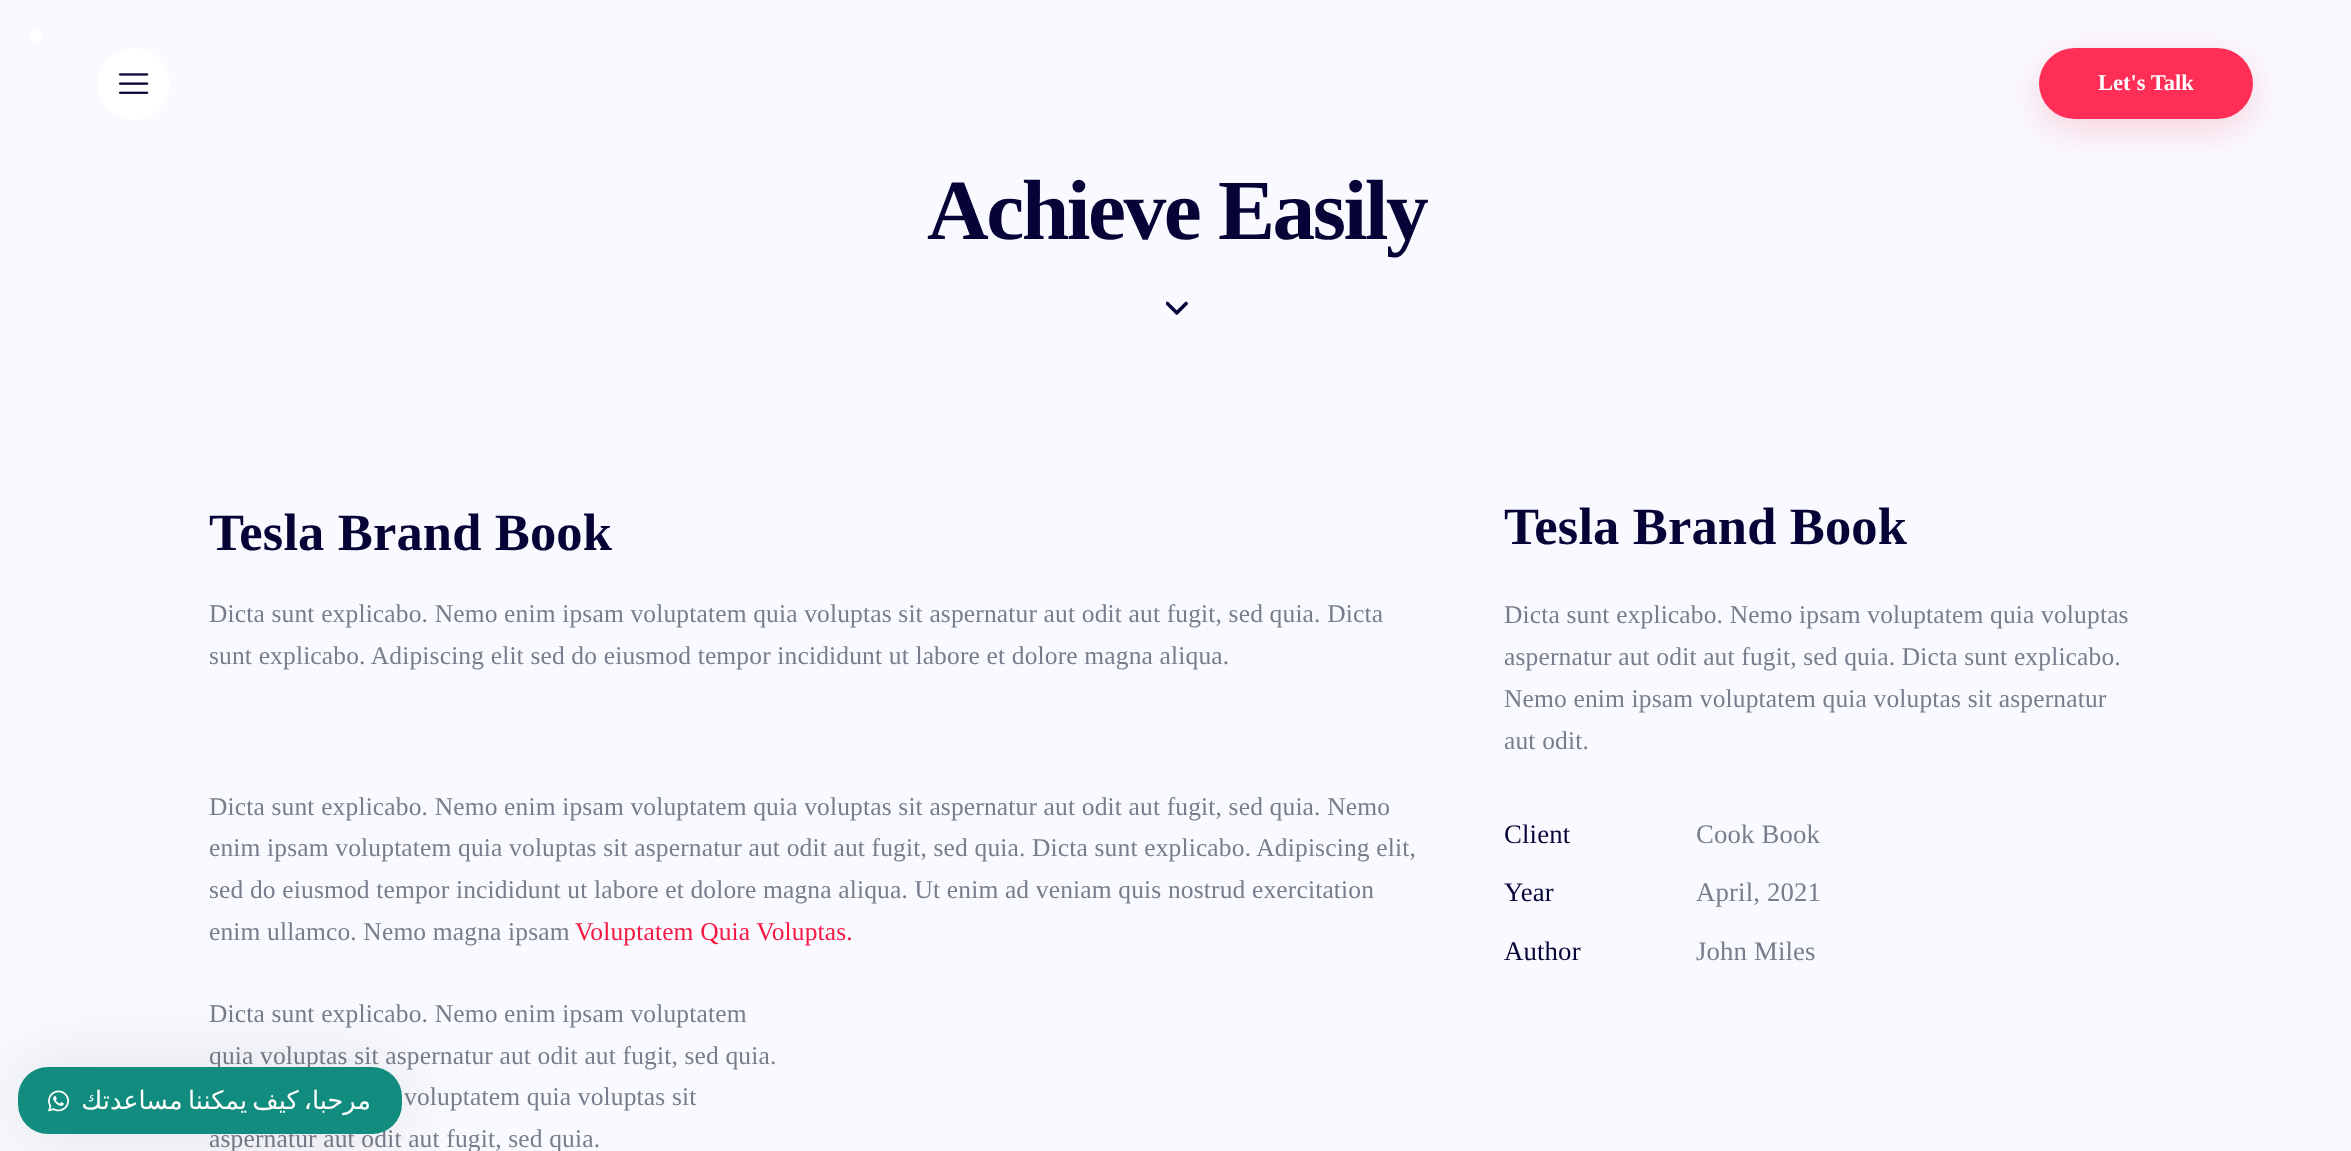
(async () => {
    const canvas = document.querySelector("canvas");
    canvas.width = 2351;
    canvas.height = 1151;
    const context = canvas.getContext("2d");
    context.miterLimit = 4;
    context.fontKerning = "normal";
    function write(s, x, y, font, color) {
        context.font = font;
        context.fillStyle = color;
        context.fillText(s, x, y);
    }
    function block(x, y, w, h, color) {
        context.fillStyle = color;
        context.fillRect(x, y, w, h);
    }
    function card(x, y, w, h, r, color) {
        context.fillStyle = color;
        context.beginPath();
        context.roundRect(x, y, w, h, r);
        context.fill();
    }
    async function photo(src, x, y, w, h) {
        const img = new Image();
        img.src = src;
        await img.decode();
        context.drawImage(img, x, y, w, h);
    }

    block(0, 0, 2351, 1151, "rgb(249, 250, 255)");
    context.fillStyle = "rgb(255, 255, 255)";
    context.beginPath();
    context.arc(36, 36, 6, 0, Math.PI * 2);
    context.fill();
    await photo("media/1.png", 98, 48, 71, 72);
    context.fillStyle = "rgba(255, 46, 87, 0.2)";
    context.filter = "blur(19px)";
    context.beginPath();
    context.roundRect(2039, 59, 214, 70, 35);
    context.fill();
    context.filter = "none";
    card(2039, 48, 214, 71, 35.5, "rgb(255, 46, 87)");
    write("Let's Talk", 2098, 90, "bold 22.5px Liberation Serif", "rgb(255, 255, 255)");
    context.letterSpacing = "-2.5px";
    write("Achieve Easily", 927, 239, "bold 85.5px Liberation Serif", "rgb(8, 3, 55)");
    await photo("media/2.png", 1166, 301, 22, 14);
    context.letterSpacing = "0.15px";
    write("Tesla Brand Book", 209, 550, "bold 52.5px Liberation Serif", "rgb(8, 3, 55)");
    write("Dicta sunt explicabo. Nemo enim ipsam voluptatem quia voluptas sit aspernatur aut odit aut fugit, sed quia. Dicta", 209, 622, "25.5px Liberation Serif", "rgb(120, 124, 139)");
    write("sunt explicabo. Adipiscing elit sed do eiusmod tempor incididunt ut labore et dolore magna aliqua.", 209, 664, "25.5px Liberation Serif", "rgb(120, 124, 139)");
    write("Dicta sunt explicabo. Nemo enim ipsam voluptatem quia voluptas sit aspernatur aut odit aut fugit, sed quia. Nemo", 209, 815, "25.5px Liberation Serif", "rgb(120, 124, 139)");
    write("enim ipsam voluptatem quia voluptas sit aspernatur aut odit aut fugit, sed quia. Dicta sunt explicabo. Adipiscing elit,", 209, 856, "25.5px Liberation Serif", "rgb(120, 124, 139)");
    write("sed do eiusmod tempor incididunt ut labore et dolore magna aliqua. Ut enim ad veniam quis nostrud exercitation", 209, 898, "25.5px Liberation Serif", "rgb(120, 124, 139)");
    write("enim ullamco. Nemo magna ipsam", 209, 940, "25.5px Liberation Serif", "rgb(120, 124, 139)");
    write("Voluptatem Quia Voluptas.", 575, 940, "25.5px Liberation Serif", "rgb(245, 24, 67)");
    write("Dicta sunt explicabo. Nemo enim ipsam voluptatem", 209, 1022, "25.5px Liberation Serif", "rgb(120, 124, 139)");
    write("quia voluptas sit aspernatur aut odit aut fugit, sed quia.", 209, 1064, "25.5px Liberation Serif", "rgb(120, 124, 139)");
    write("voluptatem quia voluptas sit", 404, 1105, "25.5px Liberation Serif", "rgb(120, 124, 139)");
    write("aspernatur aut odit aut fugit, sed quia.", 209, 1147, "25.5px Liberation Serif", "rgb(120, 124, 139)");
    write("Tesla Brand Book", 1504, 544, "bold 52.5px Liberation Serif", "rgb(8, 3, 55)");
    write("Dicta sunt explicabo. Nemo ipsam voluptatem quia voluptas", 1504, 623, "25.5px Liberation Serif", "rgb(120, 124, 139)");
    write("aspernatur aut odit aut fugit, sed quia. Dicta sunt explicabo.", 1504, 665, "25.5px Liberation Serif", "rgb(120, 124, 139)");
    write("Nemo enim ipsam voluptatem quia voluptas sit aspernatur", 1504, 707, "25.5px Liberation Serif", "rgb(120, 124, 139)");
    write("aut odit.", 1504, 749, "25.5px Liberation Serif", "rgb(120, 124, 139)");
    write("Client", 1504, 843, "26.75px Liberation Serif", "rgb(8, 3, 55)");
    write("Cook Book", 1696, 843, "26.75px Liberation Serif", "rgb(120, 124, 139)");
    write("Year", 1504, 901, "26.75px Liberation Serif", "rgb(8, 3, 55)");
    write("April, 2021", 1696, 901, "26.75px Liberation Serif", "rgb(120, 124, 139)");
    write("Author", 1504, 960, "26.75px Liberation Serif", "rgb(8, 3, 55)");
    write("John Miles", 1696, 960, "26.75px Liberation Serif", "rgb(120, 124, 139)");
    context.fillStyle = "rgba(0, 0, 0, 0.1)";
    context.filter = "blur(37.5px)";
    context.beginPath();
    context.roundRect(18, 1067, 384, 67, 30);
    context.fill();
    context.filter = "none";
    card(18, 1067, 384, 67, 30, "rgb(18, 140, 126)");
    await photo("media/3.png", 48, 1090, 21, 22);
    context.wordSpacing = "-3px";
    context.direction = "rtl";
    write("مرحبا، كيف يمكننا مساعدتك", 371, 1109, "25.5px DejaVu Sans", "rgb(255, 255, 255)");
})();
